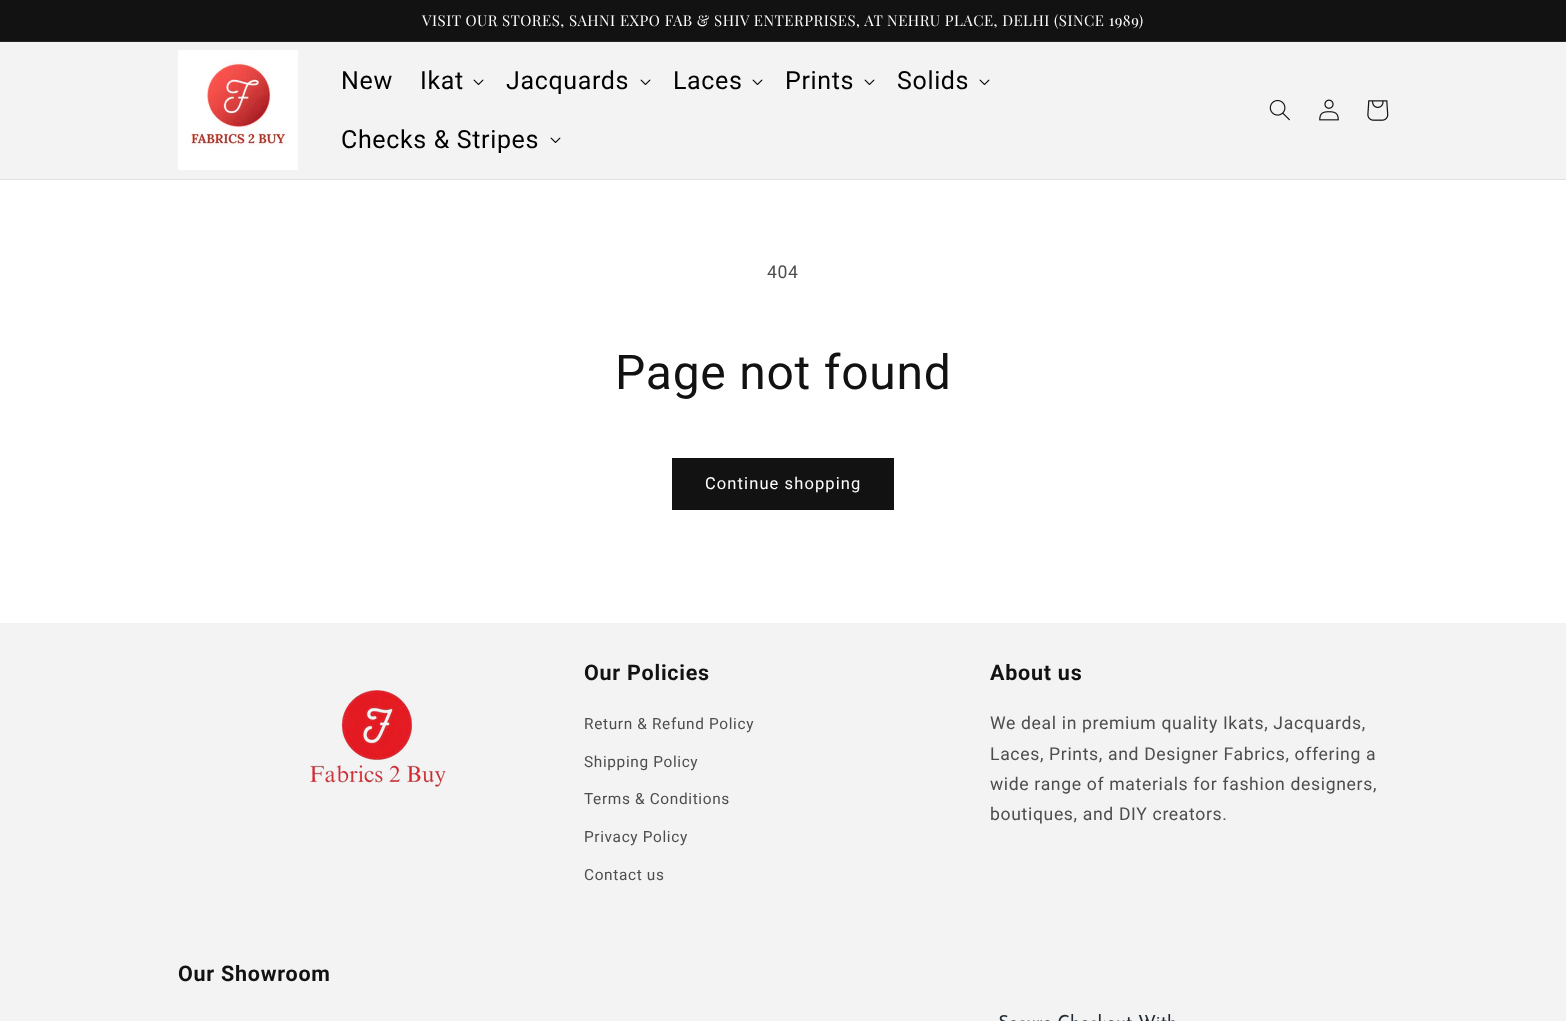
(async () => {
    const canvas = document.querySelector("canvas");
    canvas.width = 1566;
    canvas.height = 1021;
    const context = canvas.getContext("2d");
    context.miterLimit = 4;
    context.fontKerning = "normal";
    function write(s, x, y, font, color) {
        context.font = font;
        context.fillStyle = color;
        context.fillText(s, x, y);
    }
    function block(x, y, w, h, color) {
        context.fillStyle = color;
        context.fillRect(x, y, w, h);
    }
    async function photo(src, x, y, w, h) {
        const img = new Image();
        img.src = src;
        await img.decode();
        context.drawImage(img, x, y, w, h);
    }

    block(0, 0, 1566, 1021, "rgb(255, 255, 255)");
    block(0, 0, 1566, 41, "rgb(18, 18, 18)");
    block(0, 41, 1566, 1, "rgb(37, 37, 37)");
    context.letterSpacing = "0.5px";
    write("VISIT OUR STORES, SAHNI EXPO FAB & SHIV ENTERPRISES, AT NEHRU PLACE, DELHI (SINCE 1989)", 422, 26, "15px Playfair Display", "rgb(255, 255, 255)");
    block(0, 42, 1566, 137, "rgb(243, 243, 243)");
    block(0, 179, 1566, 1, "rgb(225, 225, 225)");
    await photo("media/1.png", 178, 50, 120, 120);
    context.letterSpacing = "0.65px";
    write("New", 341, 89, "25px Roboto", "rgb(0, 0, 0)");
    write("Ikat", 420, 89, "25px Roboto", "rgb(0, 0, 0)");
    await photo("media/2.png", 473, 79, 11, 6);
    write("Jacquards", 506, 89, "25px Roboto", "rgb(0, 0, 0)");
    await photo("media/2.png", 640, 79, 11, 6);
    write("Laces", 673, 89, "25px Roboto", "rgb(0, 0, 0)");
    await photo("media/2.png", 752, 79, 11, 6);
    write("Prints", 785, 89, "25px Roboto", "rgb(0, 0, 0)");
    await photo("media/2.png", 864, 79, 11, 6);
    write("Solids", 897, 89, "25px Roboto", "rgb(0, 0, 0)");
    await photo("media/2.png", 979, 79, 11, 6);
    write("Checks & Stripes", 341, 148, "25px Roboto", "rgb(0, 0, 0)");
    await photo("media/2.png", 550, 137, 11, 6);
    await photo("media/3.png", 1269, 99, 21, 22);
    await photo("media/4.png", 1319, 99, 20, 22);
    await photo("media/5.png", 1367, 100, 22, 21);
    write("404", 767, 278, "17.6px Roboto", "rgb(77, 77, 77)");
    context.letterSpacing = "0.75px";
    write("Page not found", 615, 389, "48px Roboto", "rgb(18, 18, 18)");
    block(672, 458, 222, 52, "rgb(18, 18, 18)");
    context.letterSpacing = "1.1px";
    write("Continue shopping", 705, 489, "16.5px Roboto", "rgb(255, 255, 255)");
    block(0, 623, 1566, 398, "rgb(243, 243, 243)");
    await photo("media/6.png", 310, 690, 136, 97);
    context.letterSpacing = "0.75px";
    write("Our Policies", 584, 680, "bold 21.5px Roboto", "rgb(18, 18, 18)");
    context.letterSpacing = "0.65px";
    write("Return & Refund Policy", 584, 729, "15.4px Roboto", "rgb(77, 77, 77)");
    write("Shipping Policy", 584, 767, "15.4px Roboto", "rgb(77, 77, 77)");
    write("Terms & Conditions", 584, 804, "15.4px Roboto", "rgb(77, 77, 77)");
    write("Privacy Policy", 584, 842, "15.4px Roboto", "rgb(77, 77, 77)");
    write("Contact us", 584, 880, "15.4px Roboto", "rgb(77, 77, 77)");
    context.letterSpacing = "0.75px";
    write("About us", 990, 680, "bold 21.5px Roboto", "rgb(18, 18, 18)");
    context.letterSpacing = "0.65px";
    write("We deal in premium quality Ikats, Jacquards,", 990, 729, "17.6px Roboto", "rgb(77, 77, 77)");
    write("Laces, Prints, and Designer Fabrics, offering a", 990, 760, "17.6px Roboto", "rgb(77, 77, 77)");
    write("wide range of materials for fashion designers,", 990, 790, "17.6px Roboto", "rgb(77, 77, 77)");
    write("boutiques, and DIY creators.", 990, 820, "17.6px Roboto", "rgb(77, 77, 77)");
    context.letterSpacing = "0.75px";
    write("Our Showroom", 178, 981, "bold 21.5px Roboto", "rgb(18, 18, 18)");
    await photo("media/7.png", 999, 1014, 176, 7);
})();
